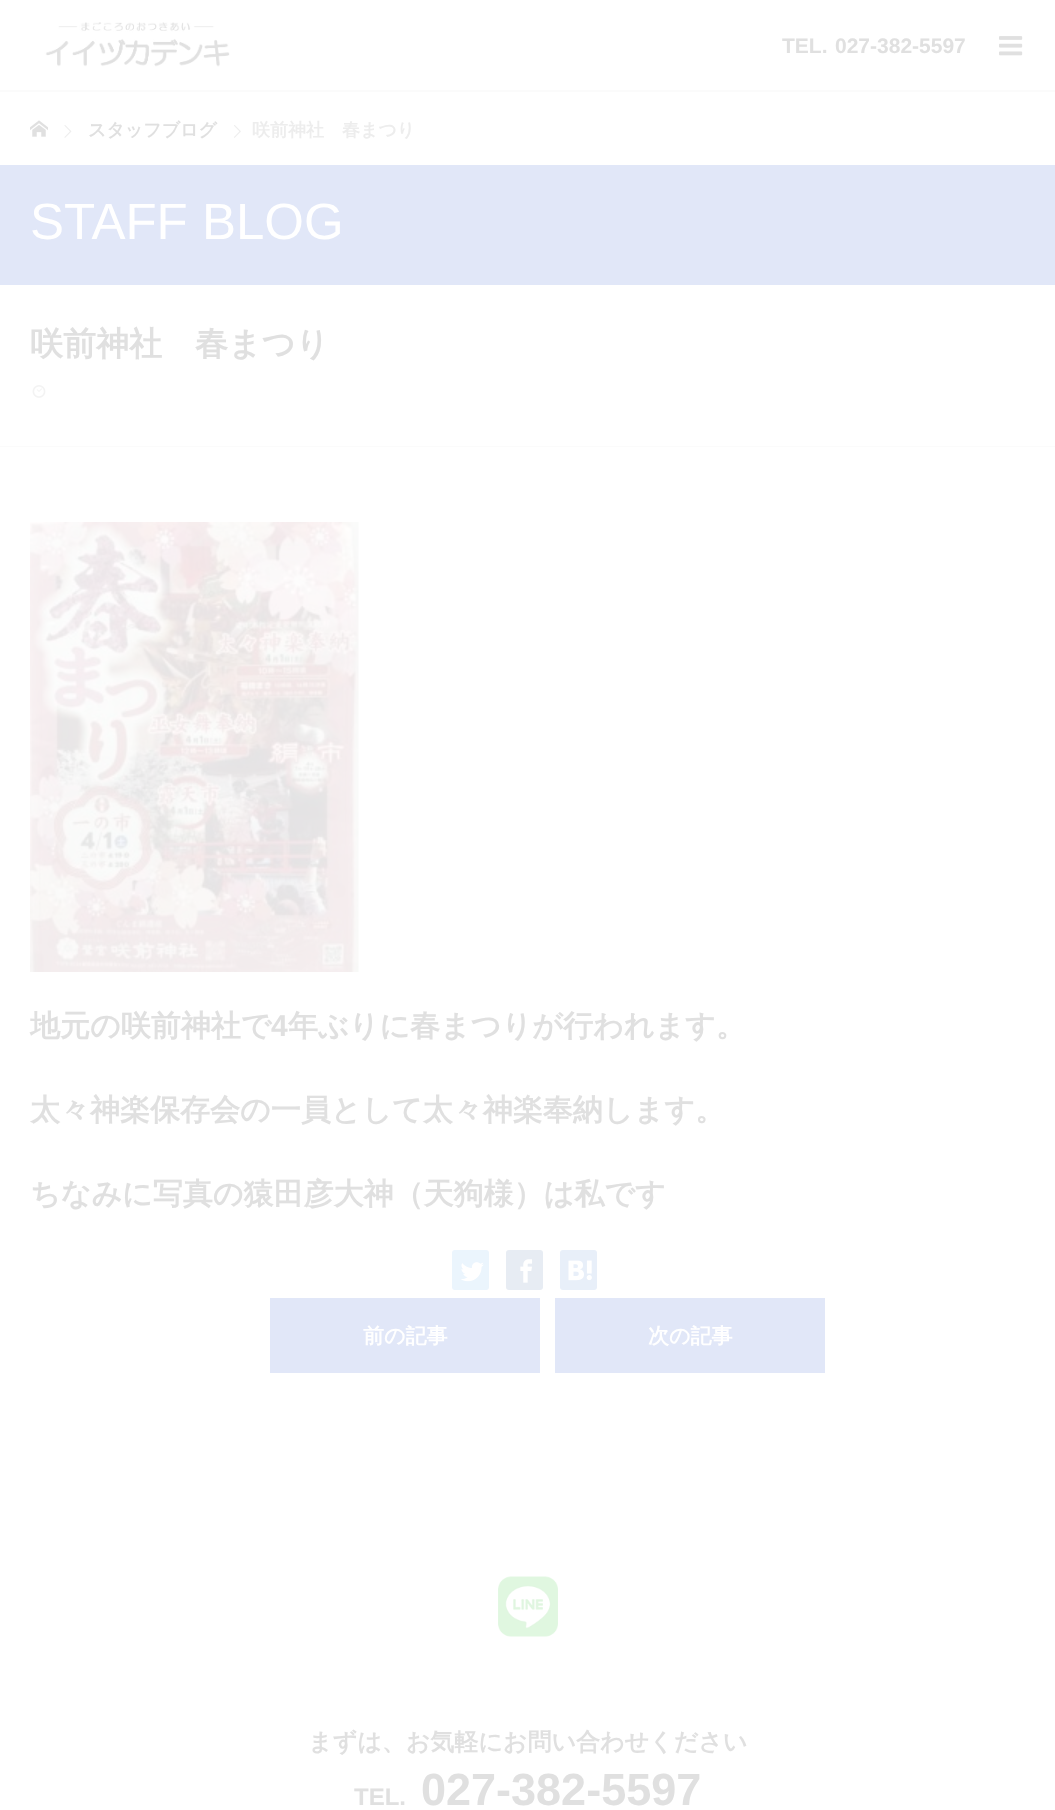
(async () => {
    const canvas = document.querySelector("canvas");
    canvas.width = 1055;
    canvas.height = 1810;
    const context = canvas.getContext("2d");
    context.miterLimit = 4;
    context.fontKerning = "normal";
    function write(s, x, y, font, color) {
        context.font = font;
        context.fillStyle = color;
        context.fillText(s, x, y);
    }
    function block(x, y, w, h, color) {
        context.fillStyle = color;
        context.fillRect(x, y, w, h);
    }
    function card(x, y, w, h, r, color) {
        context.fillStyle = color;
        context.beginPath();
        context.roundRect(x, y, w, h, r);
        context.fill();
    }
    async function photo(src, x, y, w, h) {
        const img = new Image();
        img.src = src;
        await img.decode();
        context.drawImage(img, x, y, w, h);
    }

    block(0, 0, 1055, 1810, "rgb(255, 255, 255)");
    await photo("media/1.png", 44, 22, 186, 45);
    await photo("media/2.png", 999, 36, 24, 20);
    write("TEL.", 782, 53, "bold 21px Liberation Sans", "rgb(224, 224, 224)");
    write("027-382-5597", 835, 53, "bold 21px Liberation Sans", "rgb(224, 224, 224)");
    block(0, 90, 1055, 2, "rgb(251, 251, 251)");
    await photo("media/3.png", 30, 120, 18, 17);
    await photo("media/4.png", 64, 125, 8, 13);
    write("スタッフブログ", 88, 136, "bold 18px WenQuanYi Zen Hei", "rgb(224, 224, 224)");
    await photo("media/5.png", 234, 125, 7, 13);
    write("咲前神社　春まつり", 252, 136, "bold 18px WenQuanYi Zen Hei", "rgb(237, 237, 237)");
    block(0, 446, 1055, 1, "rgb(251, 251, 251)");
    block(0, 165, 1055, 120, "rgb(225, 231, 248)");
    write("STAFF BLOG", 30, 239, "51px Liberation Sans", "rgb(255, 255, 255)");
    write("咲前神社　春まつり", 30, 355, "bold 33px WenQuanYi Zen Hei", "rgb(224, 224, 224)");
    await photo("media/6.png", 32, 385, 14, 13);
    await photo("media/7.png", 30, 522, 329, 450);
    write("地元の咲前神社で", 30, 1036, "bold 30px WenQuanYi Zen Hei", "rgb(224, 224, 224)");
    write("4", 271, 1036, "bold 30px Liberation Sans", "rgb(224, 224, 224)");
    write("年ぶりに春まつりが行われます。", 288, 1036, "bold 30px WenQuanYi Zen Hei", "rgb(224, 224, 224)");
    write("太々神楽保存会の一員として太々神楽奉納します。", 30, 1120, "bold 30px WenQuanYi Zen Hei", "rgb(224, 224, 224)");
    write("ちなみに写真の猿田彦大神（天狗様）は私です", 30, 1204, "bold 30px WenQuanYi Zen Hei", "rgb(224, 224, 224)");
    card(452, 1250, 37, 40, 3, "rgb(235, 245, 253)");
    await photo("media/8.png", 460, 1262, 24, 20);
    card(506, 1250, 37, 40, 3, "rgb(231, 236, 243)");
    await photo("media/9.png", 520, 1259, 13, 24);
    card(560, 1250, 37, 40, 3, "rgb(232, 239, 249)");
    await photo("media/10.png", 568, 1260, 24, 21);
    block(270, 1298, 270, 75, "rgb(225, 231, 248)");
    write("前の記事", 363, 1343, "bold 21px WenQuanYi Zen Hei", "rgb(255, 255, 255)");
    block(555, 1298, 270, 75, "rgb(225, 231, 248)");
    write("次の記事", 648, 1343, "bold 21px WenQuanYi Zen Hei", "rgb(255, 255, 255)");
    await photo("media/11.png", 498, 1576, 60, 61);
    write("まずは、お気軽にお問い合わせください", 308, 1750, "bold 24px WenQuanYi Zen Hei", "rgb(224, 224, 224)");
    write("TEL.", 354, 1805, "bold 24px Liberation Sans", "rgb(224, 224, 224)");
    write("027-382-5597", 421, 1805, "bold 45px Liberation Sans", "rgb(224, 224, 224)");
})();
